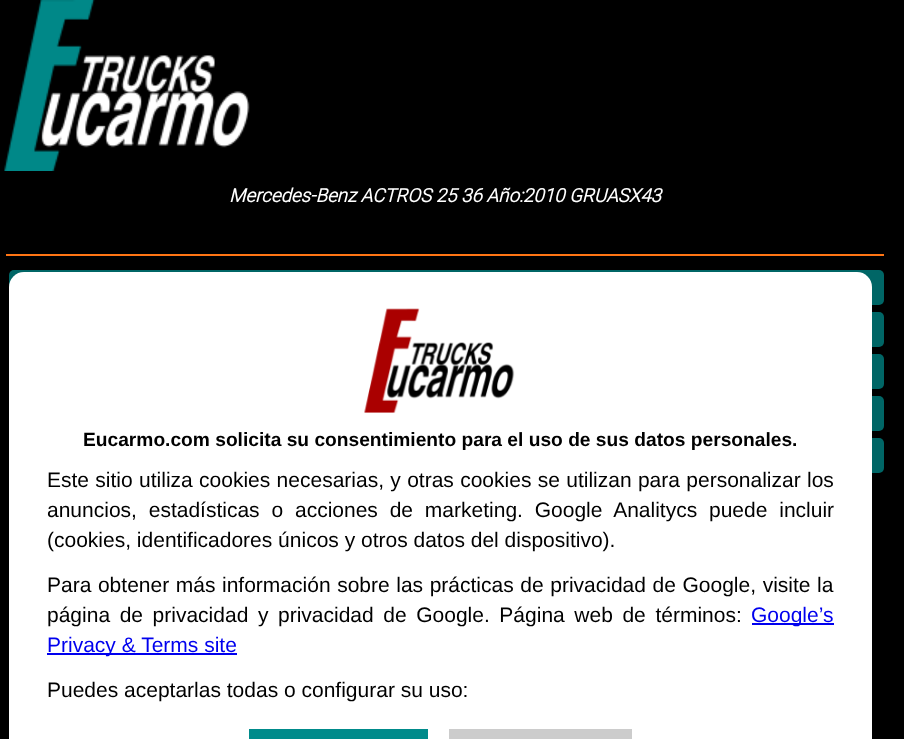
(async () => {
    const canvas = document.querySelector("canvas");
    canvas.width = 904;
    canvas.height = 739;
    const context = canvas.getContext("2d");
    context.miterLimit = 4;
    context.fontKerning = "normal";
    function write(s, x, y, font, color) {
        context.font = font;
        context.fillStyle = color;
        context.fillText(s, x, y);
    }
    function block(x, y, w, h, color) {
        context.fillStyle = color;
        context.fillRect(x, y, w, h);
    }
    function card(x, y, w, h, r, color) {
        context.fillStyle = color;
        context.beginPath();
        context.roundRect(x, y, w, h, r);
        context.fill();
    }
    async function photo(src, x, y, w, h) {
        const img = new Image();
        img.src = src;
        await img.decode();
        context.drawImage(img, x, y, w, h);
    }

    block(0, 0, 904, 739, "rgb(0, 0, 0)");
    await photo("media/1.png", 4, 0, 246, 171);
    block(6, 254, 878, 2, "rgb(255, 117, 20)");
    write("Mercedes-Benz ACTROS 25 36 Año:2010 GRUASX43", 229, 202, "italic bold 18.75px Roboto", "rgb(255, 255, 255)");
    card(9, 270, 875, 35, 5, "rgb(0, 102, 102)");
    card(9, 312, 875, 35, 5, "rgb(0, 102, 102)");
    card(9, 354, 875, 35, 5, "rgb(0, 102, 102)");
    card(9, 396, 875, 35, 5, "rgb(0, 102, 102)");
    card(9, 438, 875, 35, 5, "rgb(0, 102, 102)");
    card(9, 272, 863, 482, 15, "rgb(255, 255, 255)");
    await photo("media/2.png", 364, 308, 151, 105);
    write("Eucarmo.com solicita su consentimiento para el uso de sus datos personales.", 83, 446, "bold 19.2px Liberation Sans", "rgb(0, 0, 0)");
    context.wordSpacing = "0.5px";
    write("Este sitio utiliza cookies necesarias, y otras cookies se utilizan para personalizar los", 47, 487, "21px Liberation Sans", "rgb(0, 0, 0)");
    context.wordSpacing = "6px";
    write("anuncios, estadísticas o acciones de marketing. Google Analitycs puede incluir", 47, 517, "21px Liberation Sans", "rgb(0, 0, 0)");
    context.wordSpacing = "0px";
    write("(cookies, identificadores únicos y otros datos del dispositivo).", 47, 547, "21px Liberation Sans", "rgb(0, 0, 0)");
    context.wordSpacing = "0.75px";
    write("Para obtener más información sobre las prácticas de privacidad de Google, visite la", 47, 592, "21px Liberation Sans", "rgb(0, 0, 0)");
    context.wordSpacing = "3.75px";
    write("página de privacidad y privacidad de Google. Página web de términos:", 47, 622, "21px Liberation Sans", "rgb(0, 0, 0)");
    block(752, 623, 82, 2, "rgb(0, 0, 238)");
    context.wordSpacing = "0px";
    write("Google’s", 751, 622, "21px Liberation Sans", "rgb(0, 0, 238)");
    block(47, 653, 190, 2, "rgb(0, 0, 238)");
    write("Privacy & Terms site", 47, 652, "21px Liberation Sans", "rgb(0, 0, 238)");
    write("Puedes aceptarlas todas o configurar su uso:", 47, 697, "21px Liberation Sans", "rgb(0, 0, 0)");
    block(249, 729, 179, 10, "rgb(0, 139, 139)");
    block(449, 729, 183, 10, "rgb(204, 204, 204)");
})();
